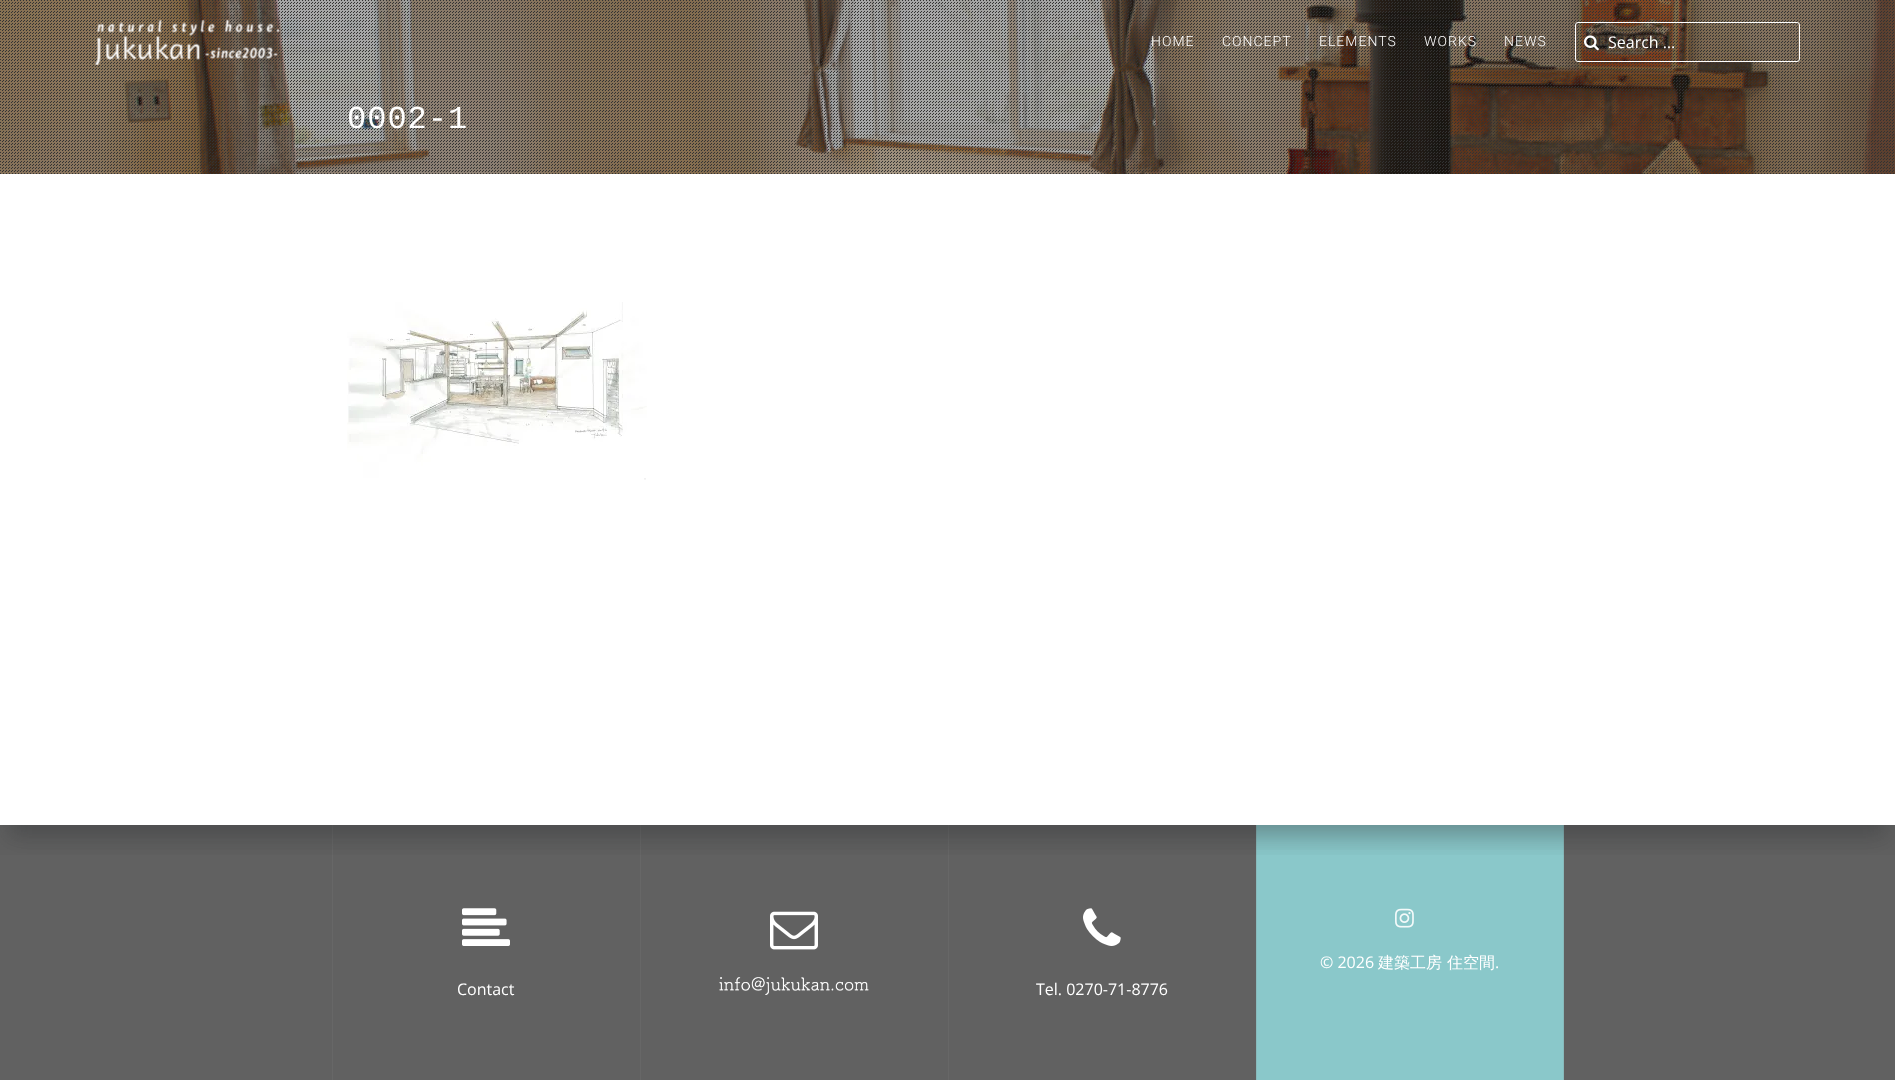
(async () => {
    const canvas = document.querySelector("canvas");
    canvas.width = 1895;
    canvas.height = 1080;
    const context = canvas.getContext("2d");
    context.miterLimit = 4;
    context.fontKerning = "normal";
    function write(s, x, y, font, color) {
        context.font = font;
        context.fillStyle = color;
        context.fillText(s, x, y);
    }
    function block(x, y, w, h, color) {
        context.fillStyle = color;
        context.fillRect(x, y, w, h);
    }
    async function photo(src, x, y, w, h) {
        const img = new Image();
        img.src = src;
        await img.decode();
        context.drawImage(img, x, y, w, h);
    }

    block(0, 0, 1895, 1080, "rgb(255, 255, 255)");
    await photo("media/3.png", 0, 0, 1895, 174);
    await photo("media/4.png", 0, 0, 1894, 174);
    await photo("media/1.png", 95, 19, 185, 46);
    context.letterSpacing = "1px";
    write("HOME", 1151, 46, "300 14px Roboto", "rgb(255, 255, 255)");
    write("CONCEPT", 1222, 46, "300 14px Roboto", "rgb(255, 255, 255)");
    write("ELEMENTS", 1319, 46, "300 14px Roboto", "rgb(255, 255, 255)");
    write("WORKS", 1424, 46, "300 14px Roboto", "rgb(255, 255, 255)");
    write("NEWS", 1504, 46, "300 14px Roboto", "rgb(255, 255, 255)");
    context.beginPath();
    context.roundRect(1575.5, 22.5, 224, 39, 2.5);
    context.strokeStyle = "rgb(255, 255, 255)";
    context.stroke();
    await photo("media/2.png", 1584, 35, 15, 16);
    context.letterSpacing = "0px";
    write("Search …", 1608, 48, "16px Open Sans", "rgb(255, 255, 255)");
    context.letterSpacing = "1px";
    write("0002-1", 347, 128, "32px Liberation Mono", "rgb(255, 255, 255)");
    block(0, 825, 1895, 255, "rgb(97, 97, 97)");
    block(640, 825, 1, 255, "rgb(103, 103, 103)");
    block(1257, 825, 306, 255, "rgb(138, 200, 202)");
    block(1563, 825, 1, 255, "rgb(136, 186, 187)");
    block(1256, 825, 1, 255, "rgb(136, 186, 187)");
    block(332, 825, 1, 255, "rgb(103, 103, 103)");
    block(948, 825, 1, 255, "rgb(103, 103, 103)");
    context.save();
    context.beginPath();
    context.rect(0, 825, 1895, 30);
    context.clip();
    context.fillStyle = "rgba(0, 0, 0, 0.08)";
    context.filter = "blur(15px)";
    context.beginPath();
    context.rect(0, 194, 1895, 651);
    context.fill();
    context.filter = "none";
    context.restore();
    context.save();
    context.beginPath();
    context.rect(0, 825, 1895, 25);
    context.clip();
    context.fillStyle = "rgba(49, 52, 57, 0.3)";
    context.filter = "blur(10px)";
    context.beginPath();
    context.rect(10, 204, 1875, 631);
    context.fill();
    context.filter = "none";
    context.restore();
    await photo("media/5.png", 347, 302, 300, 178);
    await photo("media/6.png", 770, 911, 48, 39);
    await photo("media/7.png", 719, 977, 150, 18);
    await photo("media/8.png", 1395, 908, 19, 20);
    context.letterSpacing = "0px";
    write("© 2026", 1320, 968, "16px Open Sans", "rgb(255, 255, 255)");
    write("建築工房", 1378, 968, "500 16px WenQuanYi Zen Hei", "rgb(255, 255, 255)");
    write("住空間", 1447, 968, "500 16px WenQuanYi Zen Hei", "rgb(255, 255, 255)");
    write(".", 1495, 968, "16px Open Sans", "rgb(255, 255, 255)");
    await photo("media/9.png", 462, 908, 48, 38);
    write("Contact", 457, 995, "16px Open Sans", "rgb(255, 255, 255)");
    await photo("media/10.png", 1083, 908, 38, 38);
    write("Tel. 0270-71-8776", 1036, 995, "16px Open Sans", "rgb(255, 255, 255)");
})();
